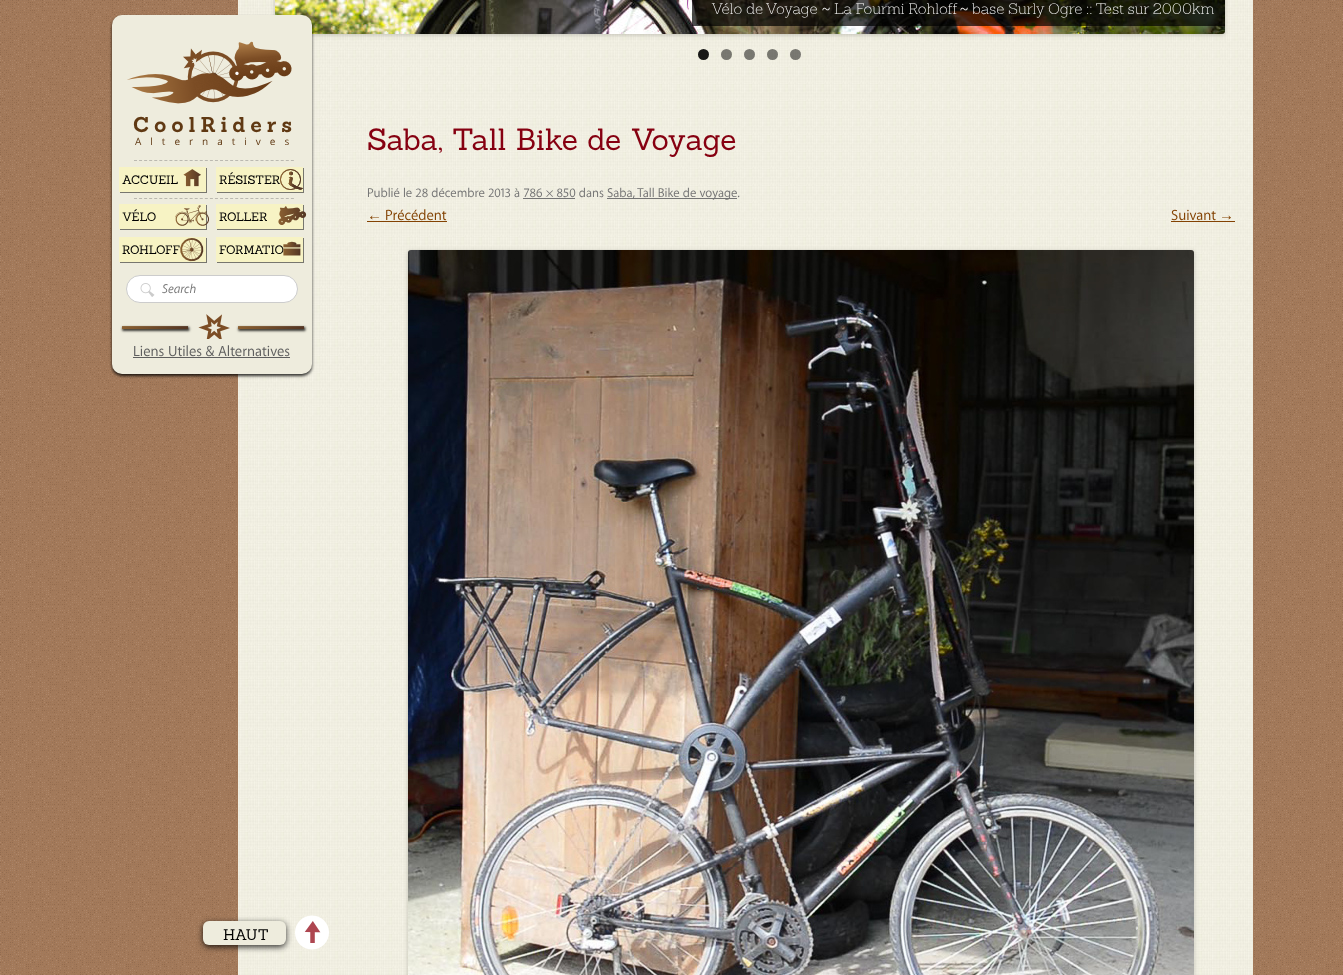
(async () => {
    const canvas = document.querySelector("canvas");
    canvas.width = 1343;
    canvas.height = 975;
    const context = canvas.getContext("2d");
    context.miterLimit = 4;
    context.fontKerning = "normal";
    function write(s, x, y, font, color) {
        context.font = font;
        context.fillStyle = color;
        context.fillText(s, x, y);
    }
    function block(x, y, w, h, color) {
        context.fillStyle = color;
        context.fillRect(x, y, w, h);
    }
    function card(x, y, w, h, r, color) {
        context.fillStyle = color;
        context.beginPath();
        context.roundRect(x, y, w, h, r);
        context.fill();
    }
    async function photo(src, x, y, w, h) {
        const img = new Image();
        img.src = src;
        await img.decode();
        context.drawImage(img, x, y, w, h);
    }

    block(0, 0, 1343, 975, "rgb(255, 255, 255)");
    await photo("media/1.png", 0, 0, 1343, 975);
    await photo("media/2.png", 238, 0, 1015, 975);
    context.fillStyle = "rgba(0, 0, 0, 0.2)";
    context.filter = "blur(2px)";
    context.beginPath();
    context.roundRect(275, -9, 950, 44, 3);
    context.fill();
    context.filter = "none";
    await photo("media/12.png", 275, 0, 950, 34);
    context.fillStyle = "rgba(0, 0, 0, 0.8)";
    context.filter = "blur(1.5px)";
    context.beginPath();
    context.roundRect(112, 17, 200, 359, 10);
    context.fill();
    context.filter = "none";
    card(112, 15, 200, 359, 10, "rgb(238, 236, 221)");
    await photo("media/3.png", 127, 41, 165, 63);
    context.letterSpacing = "5px";
    write("CoolRiders", 133, 132, "bold 21px Sanchez", "rgb(96, 57, 19)");
    context.letterSpacing = "9px";
    write("Alternatives", 135, 145, "10px Open Sans", "rgb(96, 57, 19)");
    context.fillStyle = "rgba(0, 0, 0, 0.5)";
    context.filter = "blur(0.5px)";
    context.beginPath();
    context.rect(120, 168, 87, 25);
    context.fill();
    context.filter = "none";
    block(119, 167, 87, 25, "rgb(247, 243, 196)");
    context.beginPath();
    context.moveTo(134, 160.5);
    context.lineTo(294, 160.5);
    context.strokeStyle = "rgb(187, 185, 176)";
    context.setLineDash([3, 2.06]);
    context.stroke();
    context.letterSpacing = "0px";
    write("ACCUEIL", 122, 184, "12px Sanchez", "rgb(0, 0, 0)");
    await photo("media/4.png", 183, 169, 18, 18);
    context.beginPath();
    context.moveTo(134, 198.5);
    context.lineTo(294, 198.5);
    context.stroke();
    context.fillStyle = "rgba(0, 0, 0, 0.5)";
    context.filter = "blur(0.5px)";
    context.beginPath();
    context.rect(217, 168, 87, 25);
    context.fill();
    context.filter = "none";
    block(216, 167, 87, 25, "rgb(247, 243, 196)");
    write("RÉSISTER", 219, 184, "12px Sanchez", "rgb(0, 0, 0)");
    await photo("media/5.png", 280, 169, 23, 21);
    context.fillStyle = "rgba(0, 0, 0, 0.5)";
    context.filter = "blur(0.5px)";
    context.beginPath();
    context.rect(120, 205, 87, 25);
    context.fill();
    context.filter = "none";
    block(119, 204, 87, 25, "rgb(247, 243, 196)");
    write("VÉLO", 122, 221, "12px Sanchez", "rgb(0, 0, 0)");
    await photo("media/6.png", 175, 205, 34, 21);
    context.fillStyle = "rgba(0, 0, 0, 0.5)";
    context.filter = "blur(0.5px)";
    context.beginPath();
    context.rect(217, 205, 87, 25);
    context.fill();
    context.filter = "none";
    block(216, 204, 87, 25, "rgb(247, 243, 196)");
    write("ROLLER", 219, 221, "12px Sanchez", "rgb(0, 0, 0)");
    await photo("media/7.png", 278, 206, 29, 19);
    context.fillStyle = "rgba(0, 0, 0, 0.5)";
    context.filter = "blur(0.5px)";
    context.beginPath();
    context.rect(120, 238, 87, 25);
    context.fill();
    context.filter = "none";
    block(119, 237, 87, 25, "rgb(247, 243, 196)");
    write("ROHLOFF", 122, 254, "12px Sanchez", "rgb(0, 0, 0)");
    await photo("media/8.png", 180, 238, 24, 24);
    context.fillStyle = "rgba(0, 0, 0, 0.5)";
    context.filter = "blur(0.5px)";
    context.beginPath();
    context.rect(217, 238, 87, 25);
    context.fill();
    context.filter = "none";
    block(216, 237, 87, 25, "rgb(247, 243, 196)");
    write("FORMATIO", 219, 254, "12px Sanchez", "rgb(0, 0, 0)");
    await photo("media/9.png", 283, 241, 18, 15);
    context.fillStyle = "rgb(255, 255, 255)";
    context.beginPath();
    context.roundRect(126.5, 275.5, 171, 27, 13.5);
    context.fill();
    context.strokeStyle = "rgb(204, 204, 204)";
    context.setLineDash([]);
    context.stroke();
    await photo("media/10.png", 140, 283, 15, 14);
    write("Search", 162, 293, "italic 13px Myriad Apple", "rgb(117, 117, 117)");
    await photo("media/11.png", 120, 314, 188, 25);
    write("Liens Utiles & Alternatives", 133, 356, "15px Myriad Apple", "rgb(94, 94, 94)");
    block(133, 357, 157, 1, "rgb(94, 94, 94)");
    block(692, 0, 533, 26, "rgba(0, 0, 0, 0.7)");
    write("Vélo de Voyage", 712, 14, "200 15px Sanchez", "rgb(255, 255, 255)");
    write("~", 822, 14, "15px Liberation Serif", "rgb(255, 255, 255)");
    write("La Fourmi Rohloff", 834, 14, "200 15px Sanchez", "rgb(255, 255, 255)");
    write("~", 960, 14, "15px Liberation Serif", "rgb(255, 255, 255)");
    write("base Surly Ogre :: Test sur 2000km", 972, 14, "200 15px Sanchez", "rgb(255, 255, 255)");
    context.fillStyle = "rgba(0, 0, 0, 0.9)";
    context.beginPath();
    context.arc(703.5, 54.5, 5.5, 0, Math.PI * 2);
    context.fill();
    context.fillStyle = "rgba(0, 0, 0, 0.5)";
    context.beginPath();
    context.arc(726.5, 54.5, 5.5, 0, Math.PI * 2);
    context.fill();
    context.beginPath();
    context.arc(749.5, 54.5, 5.5, 0, Math.PI * 2);
    context.fill();
    context.beginPath();
    context.arc(772.5, 54.5, 5.5, 0, Math.PI * 2);
    context.fill();
    context.beginPath();
    context.arc(795.5, 54.5, 5.5, 0, Math.PI * 2);
    context.fill();
    write("Saba, Tall Bike de Voyage", 367, 150, "30px Sanchez", "rgb(134, 0, 17)");
    write("Publié le 28 décembre 2013 à 786 × 850 dans", 367, 197, "13px Myriad Apple", "rgb(117, 117, 117)");
    block(607, 198, 130, 1, "rgb(117, 117, 117)");
    write("Saba, Tall Bike de voyage.", 607, 197, "13px Myriad Apple", "rgb(117, 117, 117)");
    block(523, 198, 52, 1, "rgb(117, 117, 117)");
    write("←", 367, 220, "15px Liberation Sans", "rgb(131, 66, 2)");
    block(367, 221, 80, 1, "rgb(131, 66, 2)");
    write("Précédent", 385, 220, "15px Myriad Apple", "rgb(131, 66, 2)");
    write("Suivant", 1171, 220, "15px Myriad Apple", "rgb(131, 66, 2)");
    write("→", 1219, 220, "15px Liberation Sans", "rgb(131, 66, 2)");
    block(1171, 221, 64, 1, "rgb(131, 66, 2)");
    context.fillStyle = "rgba(0, 0, 0, 0.2)";
    context.filter = "blur(2px)";
    context.beginPath();
    context.roundRect(408, 251, 786, 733, 3);
    context.fill();
    context.filter = "none";
    await photo("media/13.png", 408, 250, 786, 725);
    context.fillStyle = "rgba(0, 0, 0, 0.8)";
    context.filter = "blur(3px)";
    context.beginPath();
    context.roundRect(203, 923, 83, 24, 6);
    context.fill();
    context.filter = "none";
    card(203, 921, 83, 24, 6, "rgb(238, 236, 221)");
    write("HAUT", 223, 940, "15px Sanchez", "rgb(0, 0, 0)");
    await photo("media/14.png", 295, 915, 34, 35);
})();
